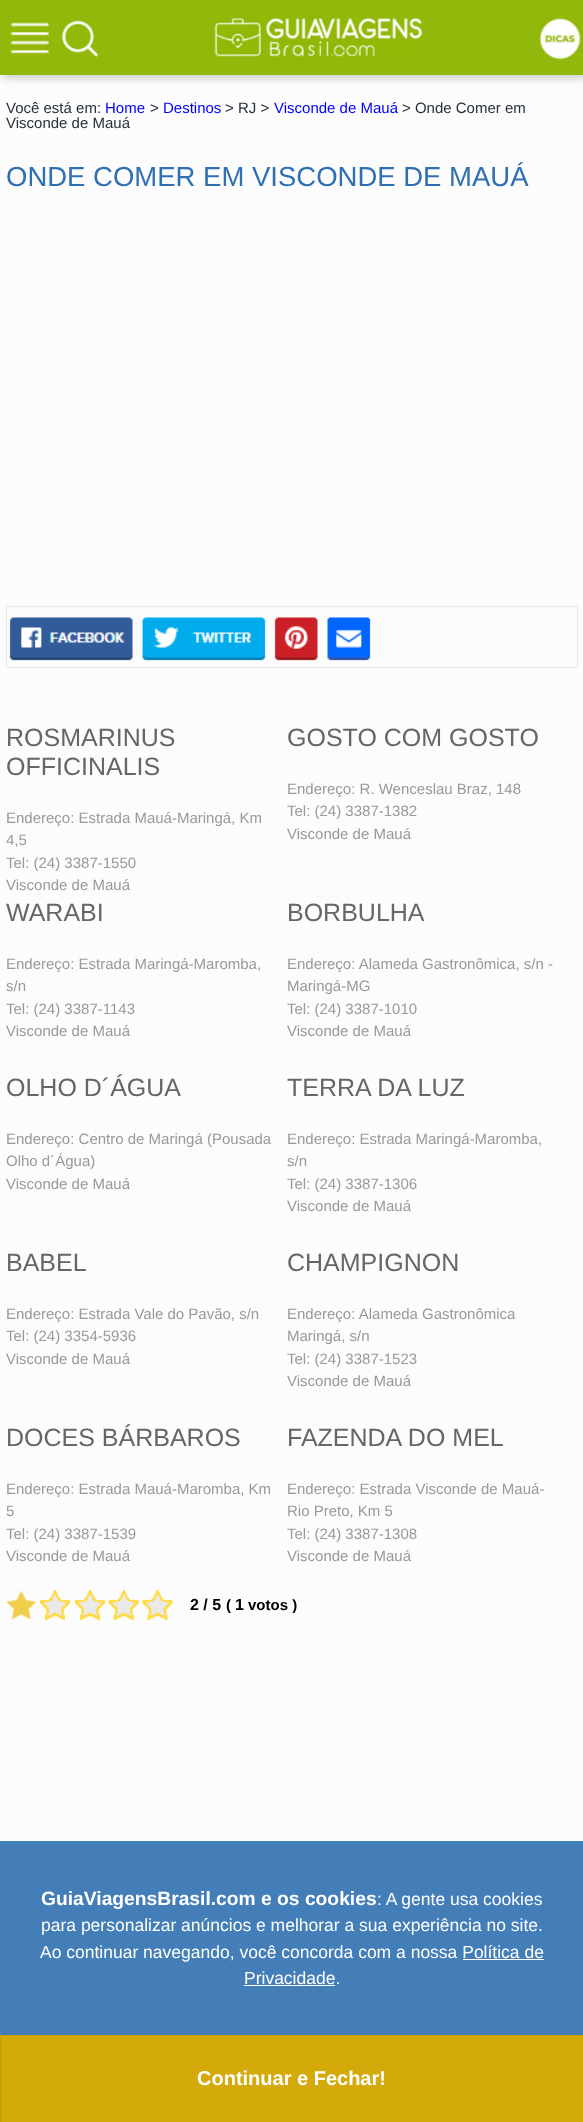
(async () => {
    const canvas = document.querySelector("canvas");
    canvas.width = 583;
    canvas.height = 2122;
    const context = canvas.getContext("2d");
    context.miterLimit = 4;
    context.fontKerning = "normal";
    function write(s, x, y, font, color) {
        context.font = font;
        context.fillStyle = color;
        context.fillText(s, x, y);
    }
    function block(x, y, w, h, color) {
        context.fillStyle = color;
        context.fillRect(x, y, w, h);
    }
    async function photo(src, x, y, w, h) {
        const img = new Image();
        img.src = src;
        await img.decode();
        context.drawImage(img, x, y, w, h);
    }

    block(0, 0, 583, 2122, "rgb(252, 252, 252)");
    block(0, 1841, 583, 194, "rgb(68, 126, 185)");
    context.fillStyle = "rgba(0, 0, 0, 0.2)";
    context.filter = "blur(4px)";
    context.beginPath();
    context.rect(3, 3, 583, 75);
    context.fill();
    context.filter = "none";
    block(0, 0, 583, 75, "rgb(145, 184, 11)");
    await photo("media/1.png", 9, 20, 41, 34);
    await photo("media/2.png", 61, 20, 38, 38);
    await photo("media/3.png", 213, 17, 210, 41);
    await photo("media/4.png", 539, 18, 42, 42);
    write("Você está em:", 6, 113, "15px Liberation Sans", "rgb(41, 48, 59)");
    write("Home", 105, 113, "15px Liberation Sans", "rgb(0, 0, 255)");
    write(">", 150, 113, "15px Liberation Sans", "rgb(41, 48, 59)");
    write("Destinos", 163, 113, "15px Liberation Sans", "rgb(0, 0, 255)");
    write("> RJ >", 225, 113, "15px Liberation Sans", "rgb(41, 48, 59)");
    write("Visconde de Mauá", 274, 113, "15px Liberation Sans", "rgb(0, 0, 255)");
    write("> Onde Comer em", 402, 113, "15px Liberation Sans", "rgb(41, 48, 59)");
    write("Visconde de Mauá", 6, 128, "15px Liberation Sans", "rgb(41, 48, 59)");
    write("ONDE COMER EM VISCONDE DE MAUÁ", 6, 186, "27.5px Liberation Sans", "rgb(47, 112, 178)");
    context.strokeStyle = "rgb(233, 233, 233)";
    context.strokeRect(6.5, 606.5, 571, 61);
    await photo("media/5.png", 9, 617, 124, 44);
    await photo("media/6.png", 142, 617, 124, 44);
    await photo("media/7.png", 274, 617, 44, 44);
    await photo("media/8.png", 327, 617, 44, 44);
    write("ROSMARINUS", 6, 746, "25px Liberation Sans", "rgb(102, 102, 102)");
    write("OFFICINALIS", 6, 775, "25px Liberation Sans", "rgb(102, 102, 102)");
    write("Endereço: Estrada Mauá-Maringá, Km", 6, 823, "15px Liberation Sans", "rgb(153, 153, 153)");
    write("4,5", 6, 845, "15px Liberation Sans", "rgb(153, 153, 153)");
    write("Tel: (24) 3387-1550", 6, 868, "15px Liberation Sans", "rgb(153, 153, 153)");
    write("Visconde de Mauá", 6, 890, "15px Liberation Sans", "rgb(153, 153, 153)");
    write("GOSTO COM GOSTO", 287, 746, "25px Liberation Sans", "rgb(102, 102, 102)");
    write("Endereço: R. Wenceslau Braz, 148", 287, 794, "15px Liberation Sans", "rgb(153, 153, 153)");
    write("Tel: (24) 3387-1382", 287, 816, "15px Liberation Sans", "rgb(153, 153, 153)");
    write("Visconde de Mauá", 287, 839, "15px Liberation Sans", "rgb(153, 153, 153)");
    write("WARABI", 6, 921, "25px Liberation Sans", "rgb(102, 102, 102)");
    write("Endereço: Estrada Maringá-Maromba,", 6, 969, "15px Liberation Sans", "rgb(153, 153, 153)");
    write("s/n", 6, 991, "15px Liberation Sans", "rgb(153, 153, 153)");
    write("Tel: (24) 3387-1143", 6, 1014, "15px Liberation Sans", "rgb(153, 153, 153)");
    write("Visconde de Mauá", 6, 1036, "15px Liberation Sans", "rgb(153, 153, 153)");
    write("BORBULHA", 287, 921, "25px Liberation Sans", "rgb(102, 102, 102)");
    write("Endereço: Alameda Gastronômica, s/n -", 287, 969, "15px Liberation Sans", "rgb(153, 153, 153)");
    write("Maringá-MG", 287, 991, "15px Liberation Sans", "rgb(153, 153, 153)");
    write("Tel: (24) 3387-1010", 287, 1014, "15px Liberation Sans", "rgb(153, 153, 153)");
    write("Visconde de Mauá", 287, 1036, "15px Liberation Sans", "rgb(153, 153, 153)");
    write("OLHO D´ÁGUA", 6, 1096, "25px Liberation Sans", "rgb(102, 102, 102)");
    write("Endereço: Centro de Maringá (Pousada", 6, 1144, "15px Liberation Sans", "rgb(153, 153, 153)");
    write("Olho d´Água)", 6, 1166, "15px Liberation Sans", "rgb(153, 153, 153)");
    write("Visconde de Mauá", 6, 1189, "15px Liberation Sans", "rgb(153, 153, 153)");
    write("TERRA DA LUZ", 287, 1096, "25px Liberation Sans", "rgb(102, 102, 102)");
    write("Endereço: Estrada Maringá-Maromba,", 287, 1144, "15px Liberation Sans", "rgb(153, 153, 153)");
    write("s/n", 287, 1166, "15px Liberation Sans", "rgb(153, 153, 153)");
    write("Tel: (24) 3387-1306", 287, 1189, "15px Liberation Sans", "rgb(153, 153, 153)");
    write("Visconde de Mauá", 287, 1211, "15px Liberation Sans", "rgb(153, 153, 153)");
    write("BABEL", 6, 1271, "25px Liberation Sans", "rgb(102, 102, 102)");
    write("Endereço: Estrada Vale do Pavão, s/n", 6, 1319, "15px Liberation Sans", "rgb(153, 153, 153)");
    write("Tel: (24) 3354-5936", 6, 1341, "15px Liberation Sans", "rgb(153, 153, 153)");
    write("Visconde de Mauá", 6, 1364, "15px Liberation Sans", "rgb(153, 153, 153)");
    write("CHAMPIGNON", 287, 1271, "25px Liberation Sans", "rgb(102, 102, 102)");
    write("Endereço: Alameda Gastronômica", 287, 1319, "15px Liberation Sans", "rgb(153, 153, 153)");
    write("Maringá, s/n", 287, 1341, "15px Liberation Sans", "rgb(153, 153, 153)");
    write("Tel: (24) 3387-1523", 287, 1364, "15px Liberation Sans", "rgb(153, 153, 153)");
    write("Visconde de Mauá", 287, 1386, "15px Liberation Sans", "rgb(153, 153, 153)");
    write("DOCES BÁRBAROS", 6, 1446, "25px Liberation Sans", "rgb(102, 102, 102)");
    write("Endereço: Estrada Mauá-Maromba, Km", 6, 1494, "15px Liberation Sans", "rgb(153, 153, 153)");
    write("5", 6, 1516, "15px Liberation Sans", "rgb(153, 153, 153)");
    write("Tel: (24) 3387-1539", 6, 1539, "15px Liberation Sans", "rgb(153, 153, 153)");
    write("Visconde de Mauá", 6, 1561, "15px Liberation Sans", "rgb(153, 153, 153)");
    write("FAZENDA DO MEL", 287, 1446, "25px Liberation Sans", "rgb(102, 102, 102)");
    write("Endereço: Estrada Visconde de Mauá-", 287, 1494, "15px Liberation Sans", "rgb(153, 153, 153)");
    write("Rio Preto, Km 5", 287, 1516, "15px Liberation Sans", "rgb(153, 153, 153)");
    write("Tel: (24) 3387-1308", 287, 1539, "15px Liberation Sans", "rgb(153, 153, 153)");
    write("Visconde de Mauá", 287, 1561, "15px Liberation Sans", "rgb(153, 153, 153)");
    await photo("media/9.png", 6, 1590, 31, 30);
    await photo("media/10.png", 40, 1590, 30, 30);
    await photo("media/10.png", 75, 1590, 30, 30);
    await photo("media/11.png", 108, 1590, 31, 30);
    await photo("media/12.png", 142, 1590, 31, 30);
    write("2 / 5", 190, 1610, "bold 16px Liberation Sans", "rgb(0, 0, 0)");
    write("(", 226, 1610, "bold 15px Liberation Sans", "rgb(0, 0, 0)");
    write("1", 235, 1610, "bold 16px Liberation Sans", "rgb(0, 0, 0)");
    write("votos )", 248, 1610, "bold 15px Liberation Sans", "rgb(0, 0, 0)");
    write("GuiaViagensBrasil.com e os cookies", 41, 1905, "bold 19.25px Liberation Sans", "rgb(255, 255, 255)");
    write(": A gente usa cookies", 377, 1905, "17.5px Liberation Sans", "rgb(255, 255, 255)");
    write("para personalizar anúncios e melhorar a sua experiência no site.", 41, 1931, "17.5px Liberation Sans", "rgb(255, 255, 255)");
    write("Ao continuar navegando, você concorda com a nossa Política de", 40, 1958, "17.5px Liberation Sans", "rgb(255, 255, 255)");
    write("Privacidade.", 244, 1984, "17.5px Liberation Sans", "rgb(255, 255, 255)");
    block(463, 1959, 81, 1, "rgb(255, 255, 255)");
    block(244, 1985, 91, 1, "rgb(255, 255, 255)");
    context.fillStyle = "rgb(212, 170, 11)";
    context.beginPath();
    context.rect(0.5, 2035.5, 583, 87);
    context.fill();
    context.strokeStyle = "rgb(204, 153, 0)";
    context.stroke();
    write("Continuar e Fechar!", 197, 2085, "bold 20px Liberation Sans", "rgb(255, 255, 255)");
})();
